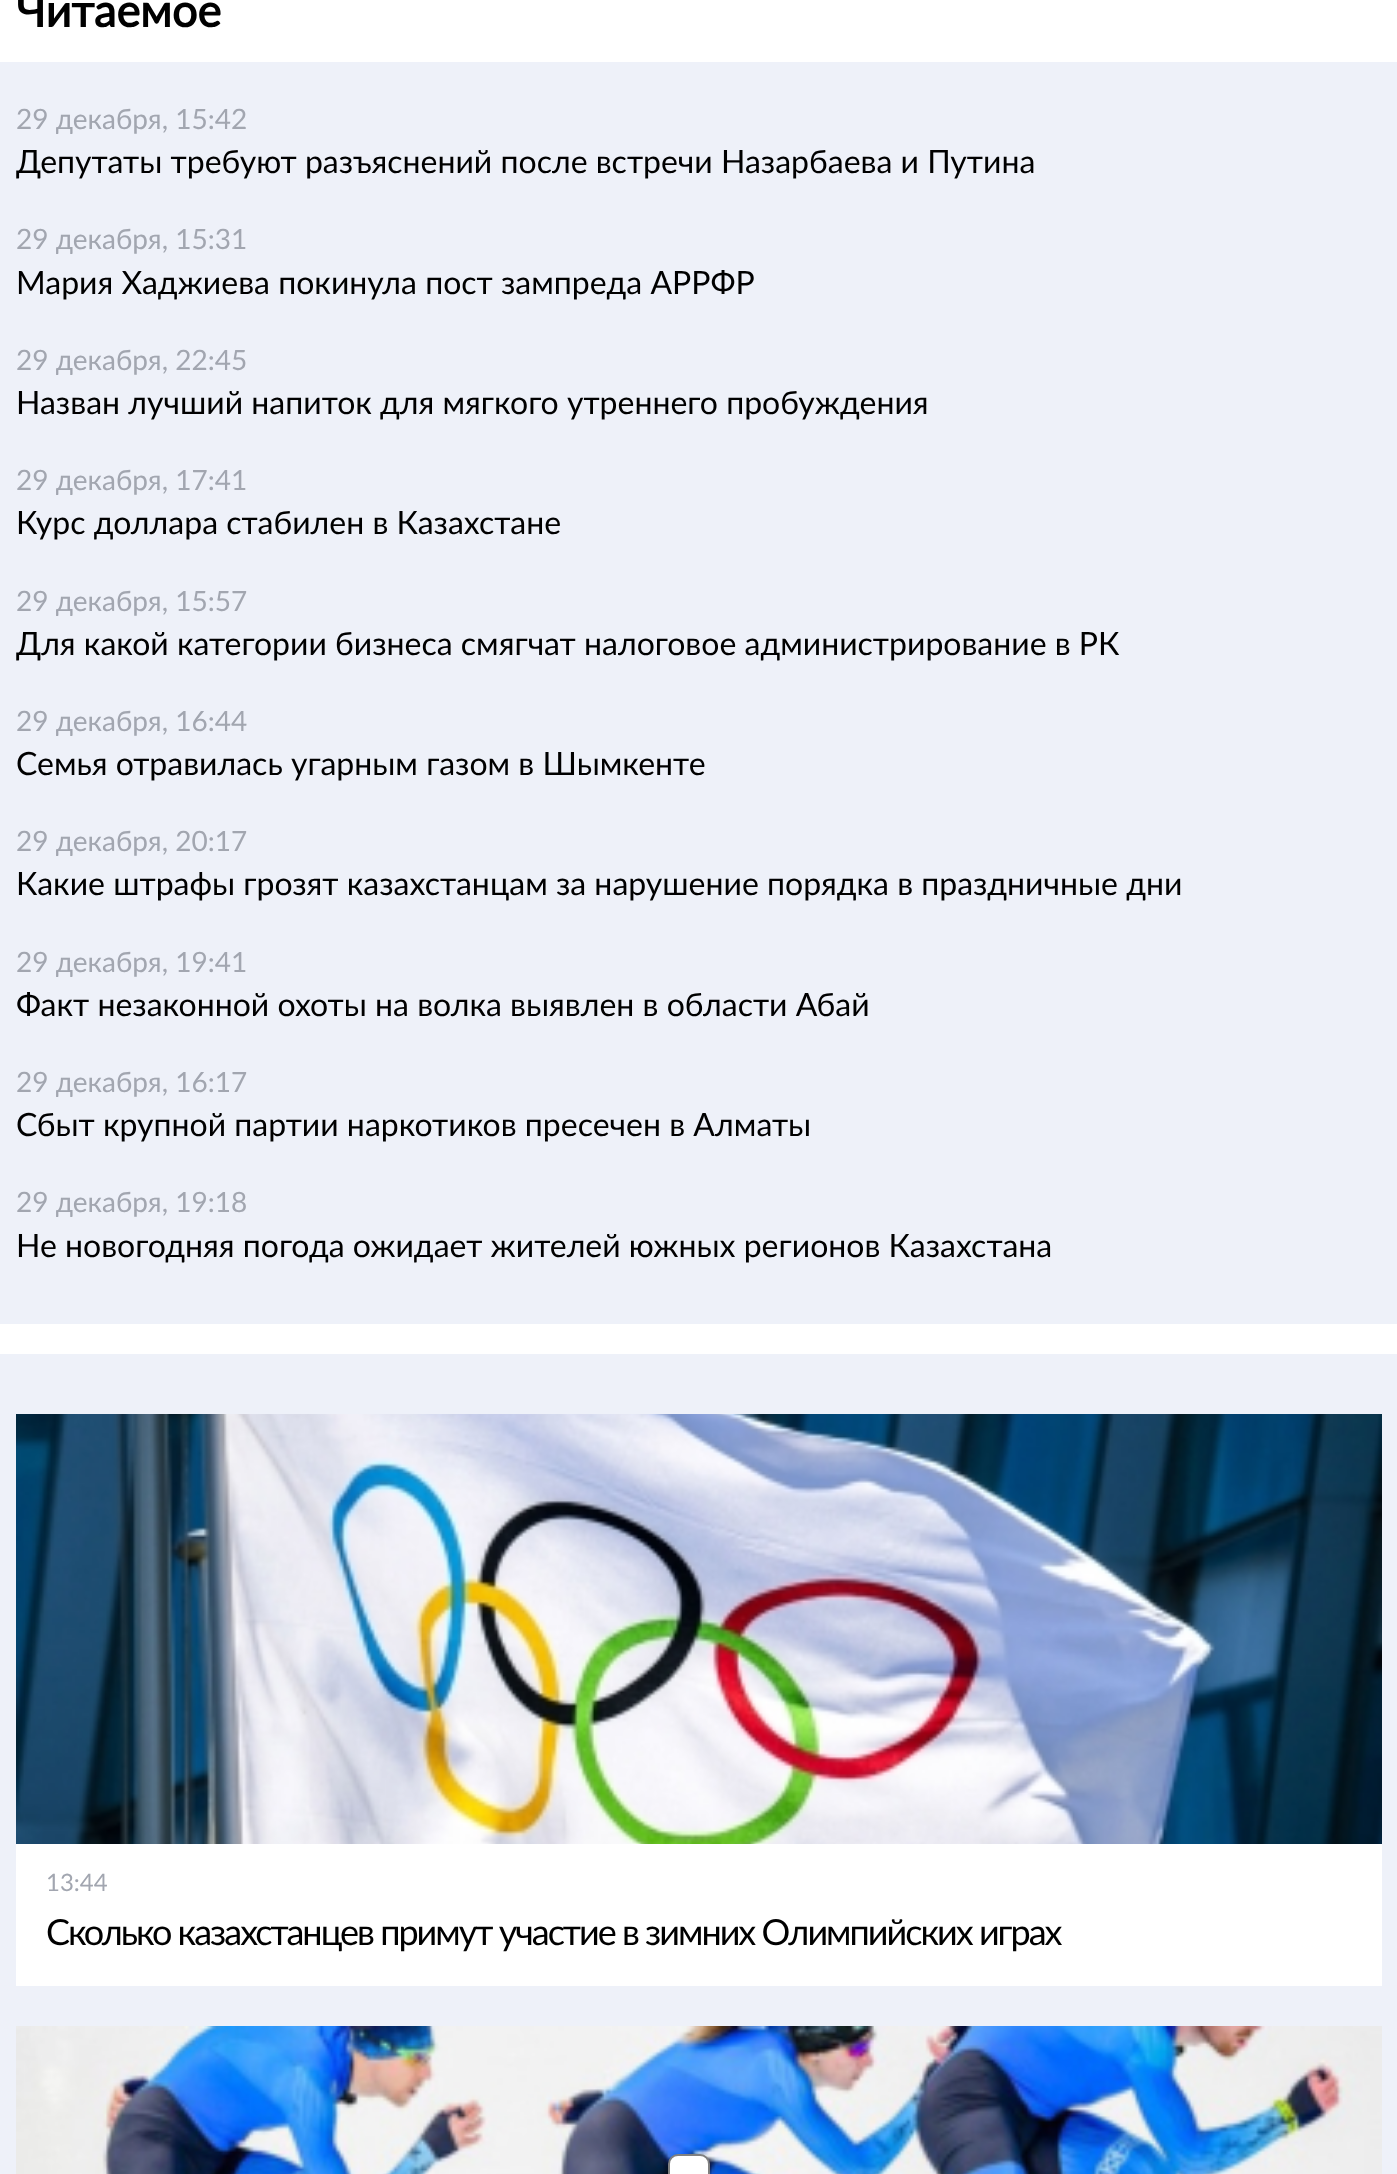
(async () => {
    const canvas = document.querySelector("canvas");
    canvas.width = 1397;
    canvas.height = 2174;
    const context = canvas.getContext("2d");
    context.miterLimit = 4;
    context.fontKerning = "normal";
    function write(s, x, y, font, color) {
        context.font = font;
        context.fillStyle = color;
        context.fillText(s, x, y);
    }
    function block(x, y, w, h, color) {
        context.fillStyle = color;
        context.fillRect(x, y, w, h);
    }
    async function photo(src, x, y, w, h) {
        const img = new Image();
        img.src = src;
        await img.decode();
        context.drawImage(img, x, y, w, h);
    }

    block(0, 0, 1397, 2174, "rgb(255, 255, 255)");
    block(0, 62, 1397, 1262, "rgb(238, 241, 249)");
    write("Читаемое", 16, 27, "bold 45px Lato", "rgb(0, 0, 0)");
    write("29 декабря, 15:42", 16, 129, "28px Lato", "rgb(162, 166, 176)");
    write("Депутаты требуют разъяснений после встречи Назарбаева и Путина", 16, 173, "32px Lato", "rgb(0, 0, 0)");
    write("29 декабря, 15:31", 16, 249, "28px Lato", "rgb(162, 166, 176)");
    write("Мария Хаджиева покинула пост зампреда АРРФР", 16, 294, "32px Lato", "rgb(0, 0, 0)");
    write("29 декабря, 22:45", 16, 370, "28px Lato", "rgb(162, 166, 176)");
    write("Назван лучший напиток для мягкого утреннего пробуждения", 16, 414, "32px Lato", "rgb(0, 0, 0)");
    write("29 декабря, 17:41", 16, 490, "28px Lato", "rgb(162, 166, 176)");
    write("Курс доллара стабилен в Казахстане", 16, 534, "32px Lato", "rgb(0, 0, 0)");
    write("29 декабря, 15:57", 16, 611, "28px Lato", "rgb(162, 166, 176)");
    write("Для какой категории бизнеса смягчат налоговое администрирование в РК", 16, 655, "32px Lato", "rgb(0, 0, 0)");
    write("29 декабря, 16:44", 16, 731, "28px Lato", "rgb(162, 166, 176)");
    write("Семья отравилась угарным газом в Шымкенте", 16, 775, "32px Lato", "rgb(0, 0, 0)");
    write("29 декабря, 20:17", 16, 851, "28px Lato", "rgb(162, 166, 176)");
    write("Какие штрафы грозят казахстанцам за нарушение порядка в праздничные дни", 16, 895, "32px Lato", "rgb(0, 0, 0)");
    write("29 декабря, 19:41", 16, 972, "28px Lato", "rgb(162, 166, 176)");
    write("Факт незаконной охоты на волка выявлен в области Абай", 16, 1016, "32px Lato", "rgb(0, 0, 0)");
    write("29 декабря, 16:17", 16, 1092, "28px Lato", "rgb(162, 166, 176)");
    write("Сбыт крупной партии наркотиков пресечен в Алматы", 16, 1136, "32px Lato", "rgb(0, 0, 0)");
    write("29 декабря, 19:18", 16, 1212, "28px Lato", "rgb(162, 166, 176)");
    write("Не новогодняя погода ожидает жителей южных регионов Казахстана", 16, 1257, "32px Lato", "rgb(0, 0, 0)");
    block(0, 1354, 1397, 820, "rgb(238, 241, 249)");
    block(16, 1844, 1366, 142, "rgb(255, 255, 255)");
    await photo("media/1.png", 16, 1414, 1366, 430);
    write("13:44", 46, 1891, "24px Lato", "rgb(162, 166, 176)");
    context.letterSpacing = "-2px";
    write("Сколько казахстанцев примут участие в зимних Олимпийских играх", 46, 1945, "36px Lato", "rgb(0, 0, 0)");
    await photo("media/2.png", 16, 2026, 1366, 148);
    context.fillStyle = "rgb(255, 255, 255)";
    context.beginPath();
    context.roundRect(669, 2155, 40, 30, 9);
    context.fill();
    context.strokeStyle = "rgb(128, 128, 128)";
    context.lineWidth = 2;
    context.stroke();
})();
